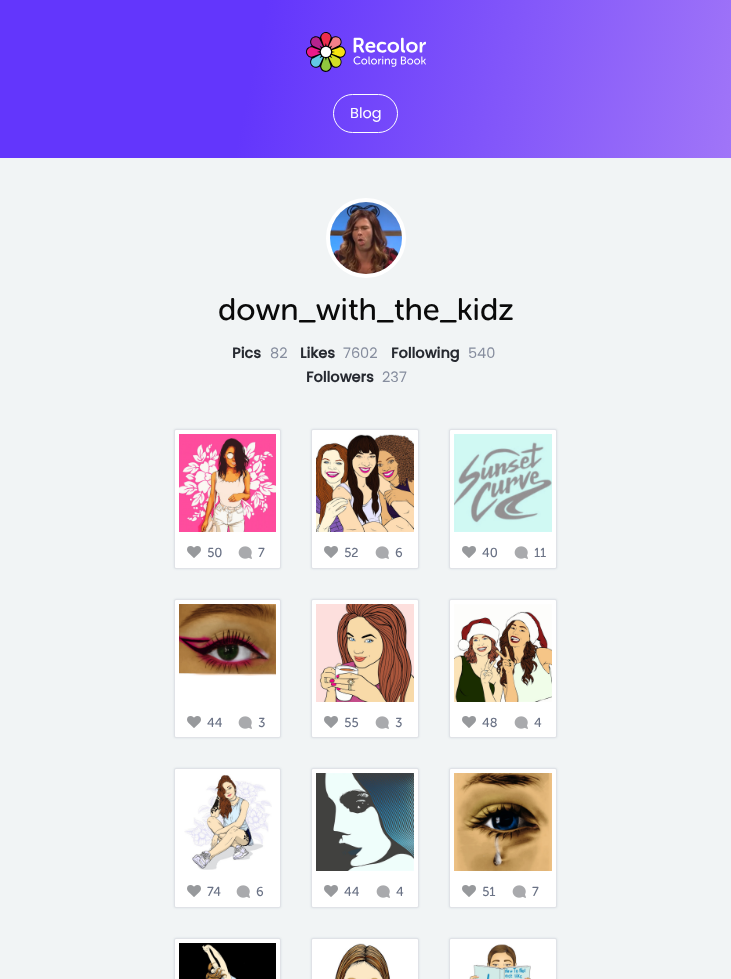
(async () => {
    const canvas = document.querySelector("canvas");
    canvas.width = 731;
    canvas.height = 979;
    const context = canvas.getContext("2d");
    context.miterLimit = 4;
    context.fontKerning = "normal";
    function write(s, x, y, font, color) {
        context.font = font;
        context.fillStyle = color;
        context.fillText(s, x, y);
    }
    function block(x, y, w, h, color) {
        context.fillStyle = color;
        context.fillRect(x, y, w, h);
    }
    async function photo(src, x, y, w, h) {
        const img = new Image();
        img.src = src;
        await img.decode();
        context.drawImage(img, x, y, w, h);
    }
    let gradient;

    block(0, 0, 731, 979, "rgb(241, 244, 245)");
    gradient = context.createLinearGradient(-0.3, 1.3, 731, 157);
    gradient.addColorStop(0.35, "rgb(99, 54, 252)");
    gradient.addColorStop(1, "rgb(160, 117, 248)");
    context.fillStyle = gradient;
    context.fillRect(0, 0, 731, 158);
    await photo("media/1.png", 306, 32, 120, 40);
    context.beginPath();
    context.roundRect(333.5, 94.5, 64, 38, 19);
    context.strokeStyle = "rgb(255, 255, 255)";
    context.stroke();
    write("Blog", 350, 118, "14.5px Poppins", "rgb(255, 255, 255)");
    context.beginPath();
    context.arc(366, 238, 38, 0, Math.PI * 2);
    context.lineWidth = 4;
    context.stroke();
    await photo("media/2.png", 330, 202, 72, 72);
    write("down_with_the_kidz", 218, 320, "31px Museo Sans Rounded", "rgb(10, 10, 10)");
    write("Pics", 232, 358, "bold 14.5px Poppins", "rgb(39, 42, 49)");
    write("82", 270, 358, "14.5px Poppins", "rgb(134, 141, 158)");
    write("Likes", 300, 358, "bold 14.5px Poppins", "rgb(39, 42, 49)");
    write("7602", 343, 358, "14.5px Poppins", "rgb(134, 141, 158)");
    write("Following", 391, 358, "bold 14.5px Poppins", "rgb(39, 42, 49)");
    write("540", 468, 358, "14.5px Poppins", "rgb(134, 141, 158)");
    write("Followers", 306, 382, "bold 14.5px Poppins", "rgb(39, 42, 49)");
    write("237", 382, 382, "14.5px Poppins", "rgb(134, 141, 158)");
    context.fillStyle = "rgba(14, 51, 101, 0.1)";
    context.filter = "blur(1px)";
    context.beginPath();
    context.roundRect(174, 429, 107, 140, 2);
    context.fill();
    context.filter = "none";
    context.fillStyle = "rgb(255, 255, 255)";
    context.beginPath();
    context.roundRect(174.5, 429.5, 106, 139, 1.5);
    context.fill();
    context.strokeStyle = "rgb(224, 226, 231)";
    context.lineWidth = 1;
    context.stroke();
    await photo("media/3.png", 179, 434, 97, 98);
    await photo("media/4.png", 187, 546, 14, 12);
    write("50", 207, 557, "13px Museo Sans Rounded", "rgb(107, 115, 134)");
    await photo("media/5.png", 238, 546, 14, 13);
    write("7", 258, 557, "13px Museo Sans Rounded", "rgb(107, 115, 134)");
    context.fillStyle = "rgba(14, 51, 101, 0.1)";
    context.filter = "blur(1px)";
    context.beginPath();
    context.roundRect(311, 429, 108, 140, 2);
    context.fill();
    context.filter = "none";
    context.fillStyle = "rgb(255, 255, 255)";
    context.beginPath();
    context.roundRect(311.5, 429.5, 107, 139, 1.5);
    context.fill();
    context.stroke();
    await photo("media/6.png", 316, 434, 98, 98);
    await photo("media/4.png", 324, 546, 14, 12);
    write("52", 344, 557, "13px Museo Sans Rounded", "rgb(107, 115, 134)");
    await photo("media/5.png", 375, 546, 14, 13);
    write("6", 395, 557, "13px Museo Sans Rounded", "rgb(107, 115, 134)");
    context.fillStyle = "rgba(14, 51, 101, 0.1)";
    context.filter = "blur(1px)";
    context.beginPath();
    context.roundRect(449, 429, 108, 140, 2);
    context.fill();
    context.filter = "none";
    context.fillStyle = "rgb(255, 255, 255)";
    context.beginPath();
    context.roundRect(449.5, 429.5, 107, 139, 1.5);
    context.fill();
    context.stroke();
    await photo("media/7.png", 454, 434, 98, 98);
    await photo("media/4.png", 462, 546, 14, 12);
    write("40", 482, 557, "13px Museo Sans Rounded", "rgb(107, 115, 134)");
    await photo("media/5.png", 514, 546, 14, 13);
    write("11", 534, 557, "13px Museo Sans Rounded", "rgb(107, 115, 134)");
    context.fillStyle = "rgba(14, 51, 101, 0.1)";
    context.filter = "blur(1px)";
    context.beginPath();
    context.roundRect(174, 599, 107, 139, 2);
    context.fill();
    context.filter = "none";
    context.fillStyle = "rgb(255, 255, 255)";
    context.beginPath();
    context.roundRect(174.5, 599.5, 106, 138, 1.5);
    context.fill();
    context.stroke();
    await photo("media/8.png", 179, 604, 97, 72);
    await photo("media/4.png", 187, 716, 14, 12);
    write("44", 207, 727, "13px Museo Sans Rounded", "rgb(107, 115, 134)");
    await photo("media/5.png", 238, 716, 14, 13);
    write("3", 258, 727, "13px Museo Sans Rounded", "rgb(107, 115, 134)");
    context.fillStyle = "rgba(14, 51, 101, 0.1)";
    context.filter = "blur(1px)";
    context.beginPath();
    context.roundRect(311, 599, 108, 139, 2);
    context.fill();
    context.filter = "none";
    context.fillStyle = "rgb(255, 255, 255)";
    context.beginPath();
    context.roundRect(311.5, 599.5, 107, 138, 1.5);
    context.fill();
    context.stroke();
    await photo("media/9.png", 316, 604, 98, 98);
    await photo("media/4.png", 324, 716, 14, 12);
    write("55", 344, 727, "13px Museo Sans Rounded", "rgb(107, 115, 134)");
    await photo("media/5.png", 375, 716, 14, 13);
    write("3", 395, 727, "13px Museo Sans Rounded", "rgb(107, 115, 134)");
    context.fillStyle = "rgba(14, 51, 101, 0.1)";
    context.filter = "blur(1px)";
    context.beginPath();
    context.roundRect(449, 599, 108, 139, 2);
    context.fill();
    context.filter = "none";
    context.fillStyle = "rgb(255, 255, 255)";
    context.beginPath();
    context.roundRect(449.5, 599.5, 107, 138, 1.5);
    context.fill();
    context.stroke();
    await photo("media/10.png", 454, 604, 98, 98);
    await photo("media/4.png", 462, 716, 14, 12);
    write("48", 482, 727, "13px Museo Sans Rounded", "rgb(107, 115, 134)");
    await photo("media/5.png", 514, 716, 14, 13);
    write("4", 534, 727, "13px Museo Sans Rounded", "rgb(107, 115, 134)");
    context.fillStyle = "rgba(14, 51, 101, 0.1)";
    context.filter = "blur(1px)";
    context.beginPath();
    context.roundRect(174, 768, 107, 140, 2);
    context.fill();
    context.filter = "none";
    context.fillStyle = "rgb(255, 255, 255)";
    context.beginPath();
    context.roundRect(174.5, 768.5, 106, 139, 1.5);
    context.fill();
    context.stroke();
    await photo("media/11.png", 184, 774, 88, 96);
    await photo("media/4.png", 187, 885, 14, 12);
    write("74", 207, 896, "13px Museo Sans Rounded", "rgb(107, 115, 134)");
    await photo("media/5.png", 236, 885, 14, 13);
    write("6", 256, 896, "13px Museo Sans Rounded", "rgb(107, 115, 134)");
    context.fillStyle = "rgba(14, 51, 101, 0.1)";
    context.filter = "blur(1px)";
    context.beginPath();
    context.roundRect(311, 768, 108, 140, 2);
    context.fill();
    context.filter = "none";
    context.fillStyle = "rgb(255, 255, 255)";
    context.beginPath();
    context.roundRect(311.5, 768.5, 107, 139, 1.5);
    context.fill();
    context.stroke();
    await photo("media/12.png", 316, 773, 98, 98);
    await photo("media/4.png", 324, 885, 14, 12);
    write("44", 344, 896, "13px Museo Sans Rounded", "rgb(107, 115, 134)");
    await photo("media/5.png", 376, 885, 14, 13);
    write("4", 396, 896, "13px Museo Sans Rounded", "rgb(107, 115, 134)");
    context.fillStyle = "rgba(14, 51, 101, 0.1)";
    context.filter = "blur(1px)";
    context.beginPath();
    context.roundRect(449, 768, 108, 140, 2);
    context.fill();
    context.filter = "none";
    context.fillStyle = "rgb(255, 255, 255)";
    context.beginPath();
    context.roundRect(449.5, 768.5, 107, 139, 1.5);
    context.fill();
    context.stroke();
    await photo("media/13.png", 454, 773, 98, 98);
    await photo("media/4.png", 462, 885, 14, 12);
    write("51", 482, 896, "13px Museo Sans Rounded", "rgb(107, 115, 134)");
    await photo("media/5.png", 512, 885, 14, 13);
    write("7", 532, 896, "13px Museo Sans Rounded", "rgb(107, 115, 134)");
    context.fillStyle = "rgba(14, 51, 101, 0.1)";
    context.filter = "blur(1px)";
    context.beginPath();
    context.roundRect(174, 938, 107, 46, 2);
    context.fill();
    context.filter = "none";
    context.fillStyle = "rgb(255, 255, 255)";
    context.beginPath();
    context.roundRect(174.5, 938.5, 106, 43, 1.5);
    context.fill();
    context.stroke();
    await photo("media/14.png", 179, 943, 97, 36);
    context.fillStyle = "rgba(14, 51, 101, 0.1)";
    context.filter = "blur(1px)";
    context.beginPath();
    context.roundRect(311, 938, 108, 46, 2);
    context.fill();
    context.filter = "none";
    context.fillStyle = "rgb(255, 255, 255)";
    context.beginPath();
    context.roundRect(311.5, 938.5, 107, 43, 1.5);
    context.fill();
    context.stroke();
    await photo("media/15.png", 334, 943, 57, 36);
    context.fillStyle = "rgba(14, 51, 101, 0.1)";
    context.filter = "blur(1px)";
    context.beginPath();
    context.roundRect(449, 938, 108, 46, 2);
    context.fill();
    context.filter = "none";
    context.fillStyle = "rgb(255, 255, 255)";
    context.beginPath();
    context.roundRect(449.5, 938.5, 107, 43, 1.5);
    context.fill();
    context.stroke();
    await photo("media/16.png", 469, 944, 62, 35);
})();
